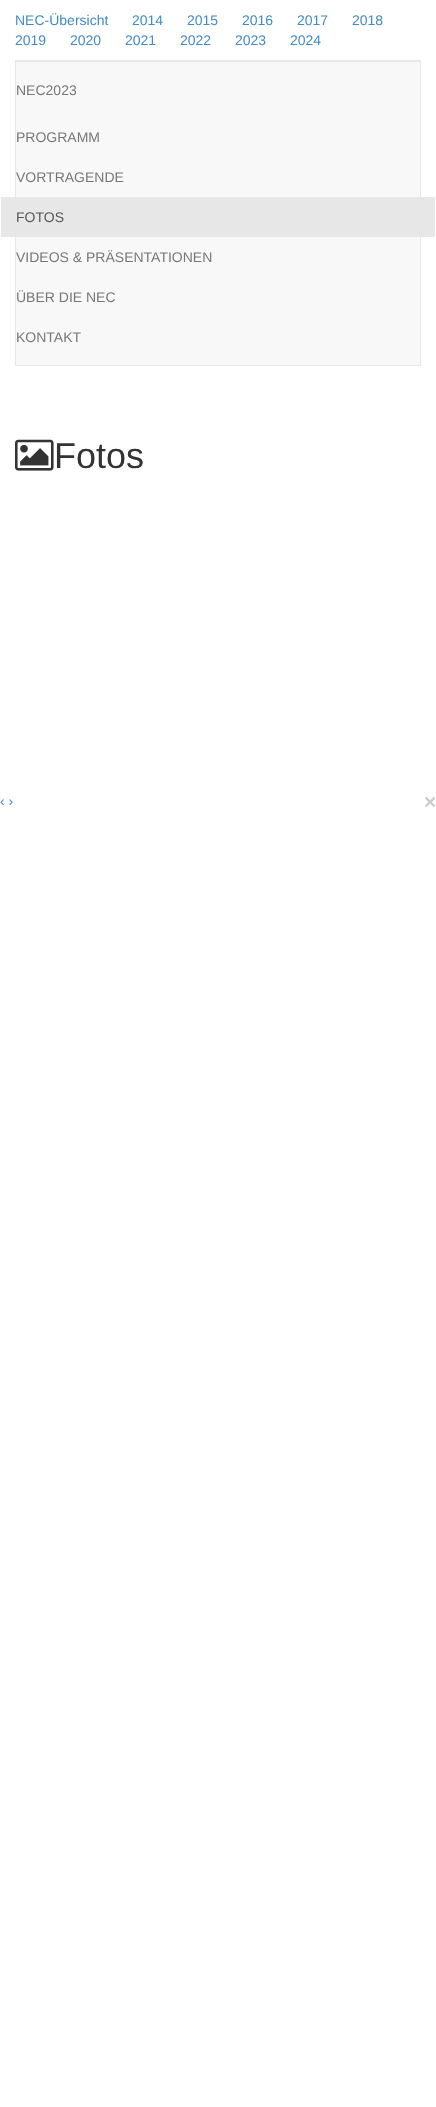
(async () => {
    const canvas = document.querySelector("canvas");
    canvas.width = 436;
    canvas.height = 2107;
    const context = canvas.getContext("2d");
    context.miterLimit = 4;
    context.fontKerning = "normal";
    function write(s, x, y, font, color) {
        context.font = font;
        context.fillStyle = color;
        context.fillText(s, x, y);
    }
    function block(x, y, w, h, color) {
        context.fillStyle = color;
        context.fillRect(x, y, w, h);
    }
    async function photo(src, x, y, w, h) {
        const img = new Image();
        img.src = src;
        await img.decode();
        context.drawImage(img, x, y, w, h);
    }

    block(0, 0, 436, 2107, "rgb(255, 255, 255)");
    write("NEC-Übersicht", 15, 25, "14px Liberation Sans", "rgb(66, 139, 202)");
    write("2014", 132, 25, "14px Liberation Sans", "rgb(66, 139, 202)");
    write("2015", 187, 25, "14px Liberation Sans", "rgb(66, 139, 202)");
    write("2016", 242, 25, "14px Liberation Sans", "rgb(66, 139, 202)");
    write("2017", 297, 25, "14px Liberation Sans", "rgb(66, 139, 202)");
    write("2018", 352, 25, "14px Liberation Sans", "rgb(66, 139, 202)");
    write("2019", 15, 45, "14px Liberation Sans", "rgb(66, 139, 202)");
    write("2020", 70, 45, "14px Liberation Sans", "rgb(66, 139, 202)");
    write("2021", 125, 45, "14px Liberation Sans", "rgb(66, 139, 202)");
    write("2022", 180, 45, "14px Liberation Sans", "rgb(66, 139, 202)");
    write("2023", 235, 45, "14px Liberation Sans", "rgb(66, 139, 202)");
    write("2024", 290, 45, "14px Liberation Sans", "rgb(66, 139, 202)");
    block(16, 62, 404, 303, "rgb(248, 248, 248)");
    context.strokeStyle = "rgb(231, 231, 231)";
    context.strokeRect(15.5, 60.5, 405, 305);
    block(16, 61, 404, 1, "rgb(231, 231, 231)");
    write("NEC2023", 16, 95, "14px Liberation Sans", "rgb(119, 119, 119)");
    write("PROGRAMM", 16, 142, "14px Liberation Sans", "rgb(119, 119, 119)");
    write("VORTRAGENDE", 16, 182, "14px Liberation Sans", "rgb(119, 119, 119)");
    block(1, 197, 434, 40, "rgb(231, 231, 231)");
    write("FOTOS", 16, 222, "14px Liberation Sans", "rgb(85, 85, 85)");
    write("VIDEOS & PRÄSENTATIONEN", 16, 262, "14px Liberation Sans", "rgb(119, 119, 119)");
    write("ÜBER DIE NEC", 16, 302, "14px Liberation Sans", "rgb(119, 119, 119)");
    write("KONTAKT", 16, 342, "14px Liberation Sans", "rgb(119, 119, 119)");
    await photo("media/1.png", 15, 439, 39, 32);
    write("Fotos", 54, 468, "36px Liberation Sans", "rgb(51, 51, 51)");
    write("‹ ›", 0, 806, "14px Liberation Sans", "rgb(66, 139, 202)");
    write("×", 424, 809, "bold 21px Liberation Sans", "rgb(204, 204, 204)");
})();
